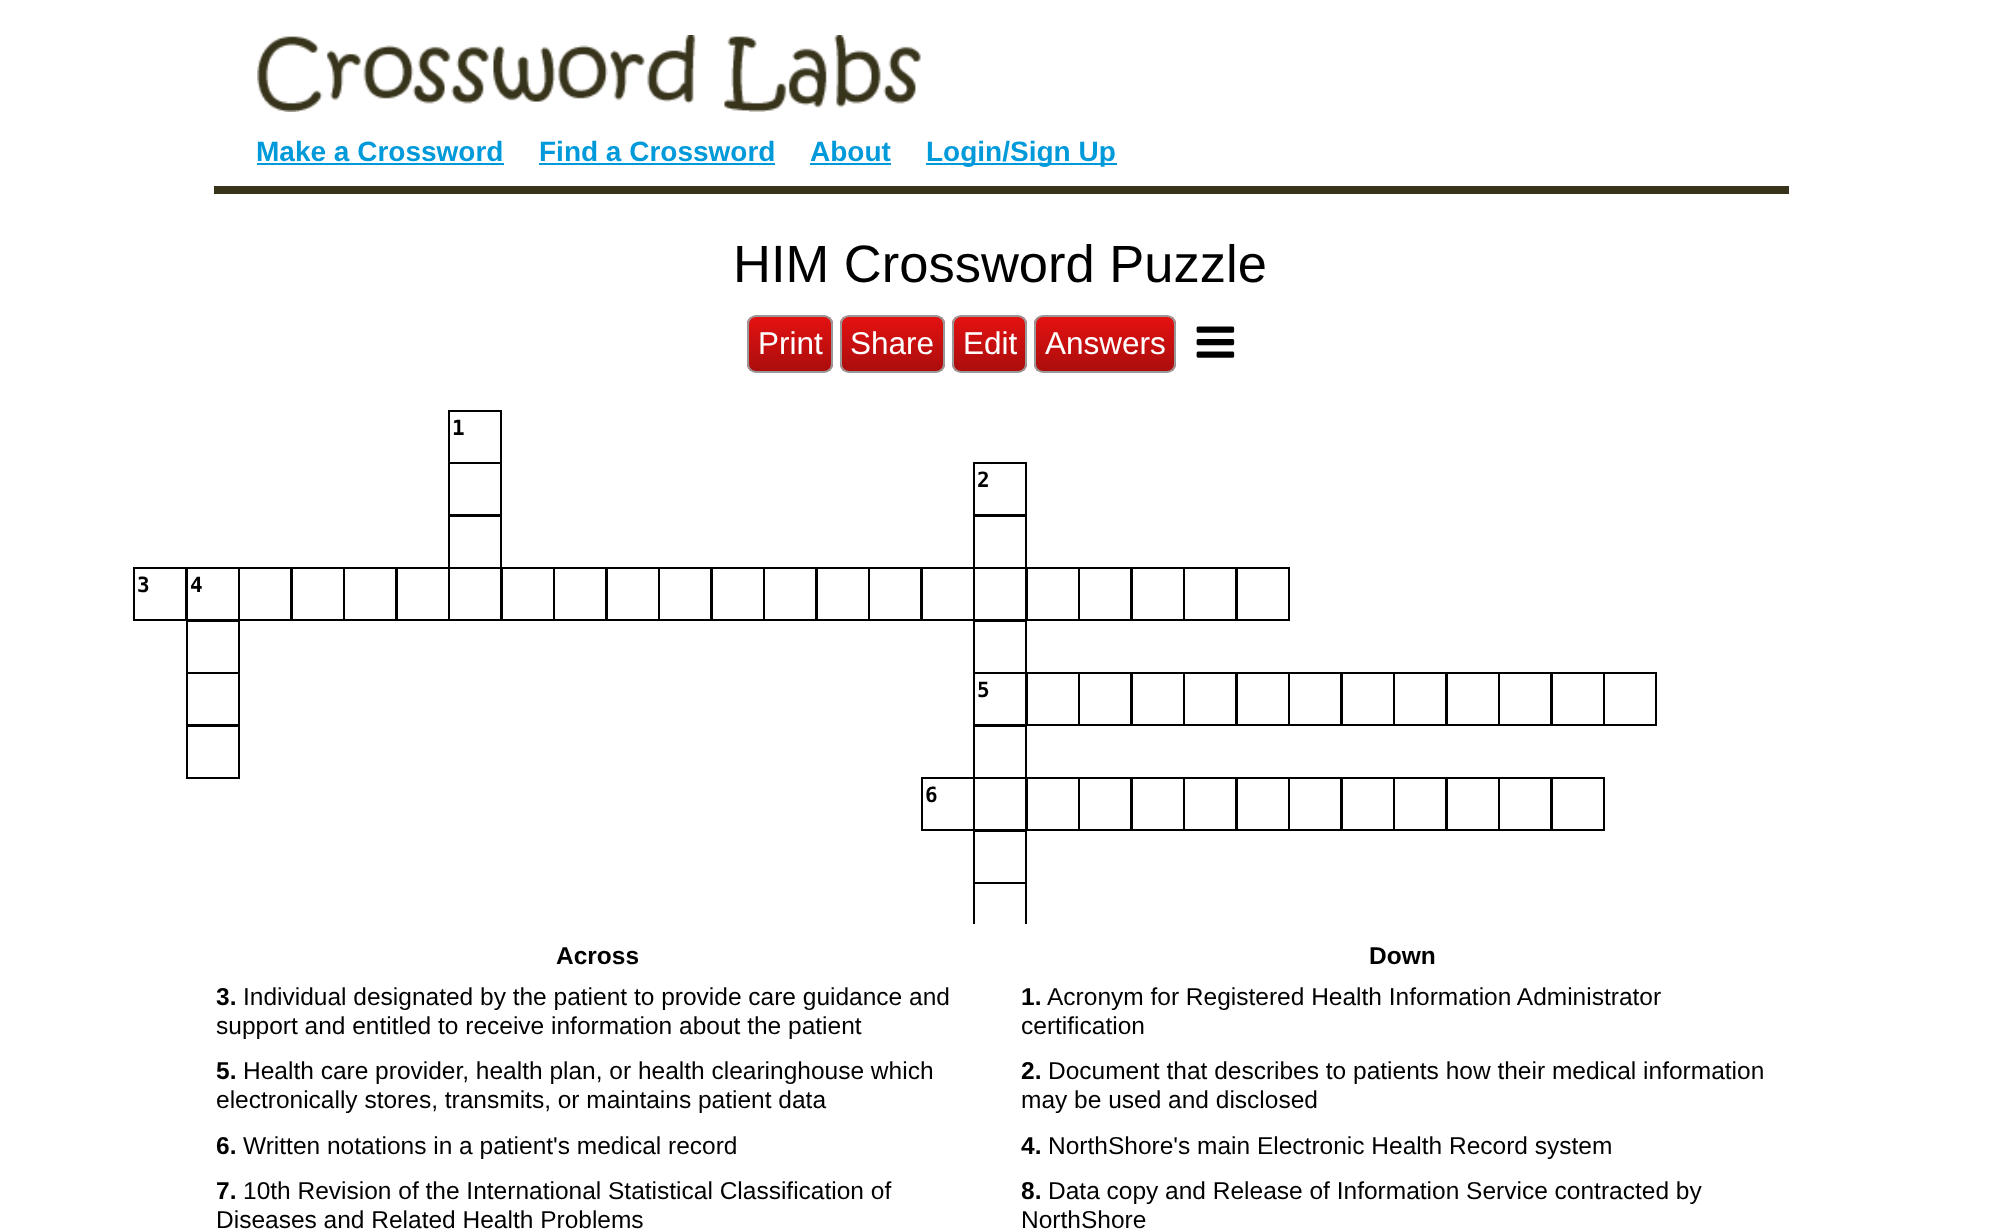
(async () => {
    const canvas = document.querySelector("canvas");
    canvas.width = 2000;
    canvas.height = 1232;
    const context = canvas.getContext("2d");
    context.miterLimit = 4;
    context.fontKerning = "normal";
    function write(s, x, y, font, color) {
        context.font = font;
        context.fillStyle = color;
        context.fillText(s, x, y);
    }
    function block(x, y, w, h, color) {
        context.fillStyle = color;
        context.fillRect(x, y, w, h);
    }
    async function photo(src, x, y, w, h) {
        const img = new Image();
        img.src = src;
        await img.decode();
        context.drawImage(img, x, y, w, h);
    }
    let gradient;

    block(0, 0, 2000, 1232, "rgb(255, 255, 255)");
    await photo("media/1.png", 257, 35, 664, 77);
    write("Make a Crossword", 256, 161, "bold 28px Liberation Sans", "rgb(0, 154, 219)");
    block(257, 163, 247, 2, "rgb(0, 154, 219)");
    write("Find a Crossword", 539, 161, "bold 28px Liberation Sans", "rgb(0, 154, 219)");
    block(539, 163, 236, 2, "rgb(0, 154, 219)");
    write("About", 810, 161, "bold 28px Liberation Sans", "rgb(0, 154, 219)");
    block(810, 163, 81, 2, "rgb(0, 154, 219)");
    block(926, 163, 191, 2, "rgb(0, 154, 219)");
    write("Login/Sign Up", 926, 161, "bold 28px Liberation Sans", "rgb(0, 154, 219)");
    block(214, 186, 1575, 8, "rgb(56, 52, 28)");
    write("HIM Crossword Puzzle", 733, 282, "52.5px Liberation Sans", "rgb(0, 0, 0)");
    context.save();
    context.beginPath();
    context.roundRect(747, 315, 86, 58, 9);
    context.clip();
    gradient = context.createLinearGradient(790, 317, 790, 371);
    gradient.addColorStop(0, "rgb(228, 17, 17)");
    gradient.addColorStop(1, "rgb(171, 13, 13)");
    context.fillStyle = gradient;
    context.fillRect(747, 317, 86, 54);
    context.restore();
    context.beginPath();
    context.roundRect(748, 316, 84, 56, 8);
    context.strokeStyle = "rgb(153, 153, 153)";
    context.lineWidth = 2;
    context.stroke();
    write("Print", 758, 354, "31.5px Liberation Sans", "rgb(255, 255, 255)");
    context.save();
    context.beginPath();
    context.roundRect(840, 315, 105, 58, 9);
    context.clip();
    gradient = context.createLinearGradient(893, 317, 893, 371);
    gradient.addColorStop(0, "rgb(228, 17, 17)");
    gradient.addColorStop(1, "rgb(171, 13, 13)");
    context.fillStyle = gradient;
    context.fillRect(840, 317, 105, 54);
    context.restore();
    context.beginPath();
    context.roundRect(841, 316, 103, 56, 8);
    context.stroke();
    write("Share", 850, 354, "31.5px Liberation Sans", "rgb(255, 255, 255)");
    context.save();
    context.beginPath();
    context.roundRect(952, 315, 75, 58, 9);
    context.clip();
    gradient = context.createLinearGradient(990, 317, 990, 371);
    gradient.addColorStop(0, "rgb(228, 17, 17)");
    gradient.addColorStop(1, "rgb(171, 13, 13)");
    context.fillStyle = gradient;
    context.fillRect(952, 317, 75, 54);
    context.restore();
    context.beginPath();
    context.roundRect(953, 316, 73, 56, 8);
    context.stroke();
    write("Edit", 963, 354, "31.5px Liberation Sans", "rgb(255, 255, 255)");
    context.save();
    context.beginPath();
    context.roundRect(1034, 315, 142, 58, 9);
    context.clip();
    gradient = context.createLinearGradient(1105, 317, 1105, 371);
    gradient.addColorStop(0, "rgb(228, 17, 17)");
    gradient.addColorStop(1, "rgb(171, 13, 13)");
    context.fillStyle = gradient;
    context.fillRect(1034, 317, 142, 54);
    context.restore();
    context.beginPath();
    context.roundRect(1035, 316, 140, 56, 8);
    context.stroke();
    write("Answers", 1045, 354, "31.5px Liberation Sans", "rgb(255, 255, 255)");
    await photo("media/2.png", 1196, 326, 39, 32);
    await photo("media/3.png", 133, 410, 1524, 514);
    write("1", 452, 435, "bold 21px DejaVu Sans Mono", "rgb(0, 0, 0)");
    write("2", 977, 487, "bold 21px DejaVu Sans Mono", "rgb(0, 0, 0)");
    write("3", 137, 592, "bold 21px DejaVu Sans Mono", "rgb(0, 0, 0)");
    write("4", 190, 592, "bold 21px DejaVu Sans Mono", "rgb(0, 0, 0)");
    write("5", 977, 697, "bold 21px DejaVu Sans Mono", "rgb(0, 0, 0)");
    write("6", 925, 802, "bold 21px DejaVu Sans Mono", "rgb(0, 0, 0)");
    write("Across", 556, 964, "bold 24.5px Liberation Sans", "rgb(0, 0, 0)");
    write("3.", 216, 1005, "bold 24.5px Liberation Sans", "rgb(0, 0, 0)");
    write("Individual designated by the patient to provide care guidance and", 243, 1005, "24.5px Liberation Sans", "rgb(0, 0, 0)");
    write("support and entitled to receive information about the patient", 216, 1034, "24.5px Liberation Sans", "rgb(0, 0, 0)");
    write("5.", 216, 1079, "bold 24.5px Liberation Sans", "rgb(0, 0, 0)");
    write("Health care provider, health plan, or health clearinghouse which", 243, 1079, "24.5px Liberation Sans", "rgb(0, 0, 0)");
    write("electronically stores, transmits, or maintains patient data", 216, 1108, "24.5px Liberation Sans", "rgb(0, 0, 0)");
    write("6.", 216, 1154, "bold 24.5px Liberation Sans", "rgb(0, 0, 0)");
    write("Written notations in a patient's medical record", 243, 1154, "24.5px Liberation Sans", "rgb(0, 0, 0)");
    write("7.", 216, 1199, "bold 24.5px Liberation Sans", "rgb(0, 0, 0)");
    write("10th Revision of the International Statistical Classification of", 243, 1199, "24.5px Liberation Sans", "rgb(0, 0, 0)");
    write("Diseases and Related Health Problems", 216, 1228, "24.5px Liberation Sans", "rgb(0, 0, 0)");
    write("Down", 1369, 964, "bold 24.5px Liberation Sans", "rgb(0, 0, 0)");
    write("1.", 1021, 1005, "bold 24.5px Liberation Sans", "rgb(0, 0, 0)");
    write("Acronym for Registered Health Information Administrator", 1047, 1005, "24.5px Liberation Sans", "rgb(0, 0, 0)");
    write("certification", 1021, 1034, "24.5px Liberation Sans", "rgb(0, 0, 0)");
    write("2.", 1021, 1079, "bold 24.5px Liberation Sans", "rgb(0, 0, 0)");
    write("Document that describes to patients how their medical information", 1048, 1079, "24.5px Liberation Sans", "rgb(0, 0, 0)");
    write("may be used and disclosed", 1021, 1108, "24.5px Liberation Sans", "rgb(0, 0, 0)");
    write("4.", 1021, 1154, "bold 24.5px Liberation Sans", "rgb(0, 0, 0)");
    write("NorthShore's main Electronic Health Record system", 1048, 1154, "24.5px Liberation Sans", "rgb(0, 0, 0)");
    write("8.", 1021, 1199, "bold 24.5px Liberation Sans", "rgb(0, 0, 0)");
    write("Data copy and Release of Information Service contracted by", 1048, 1199, "24.5px Liberation Sans", "rgb(0, 0, 0)");
    write("NorthShore", 1021, 1228, "24.5px Liberation Sans", "rgb(0, 0, 0)");
})();
